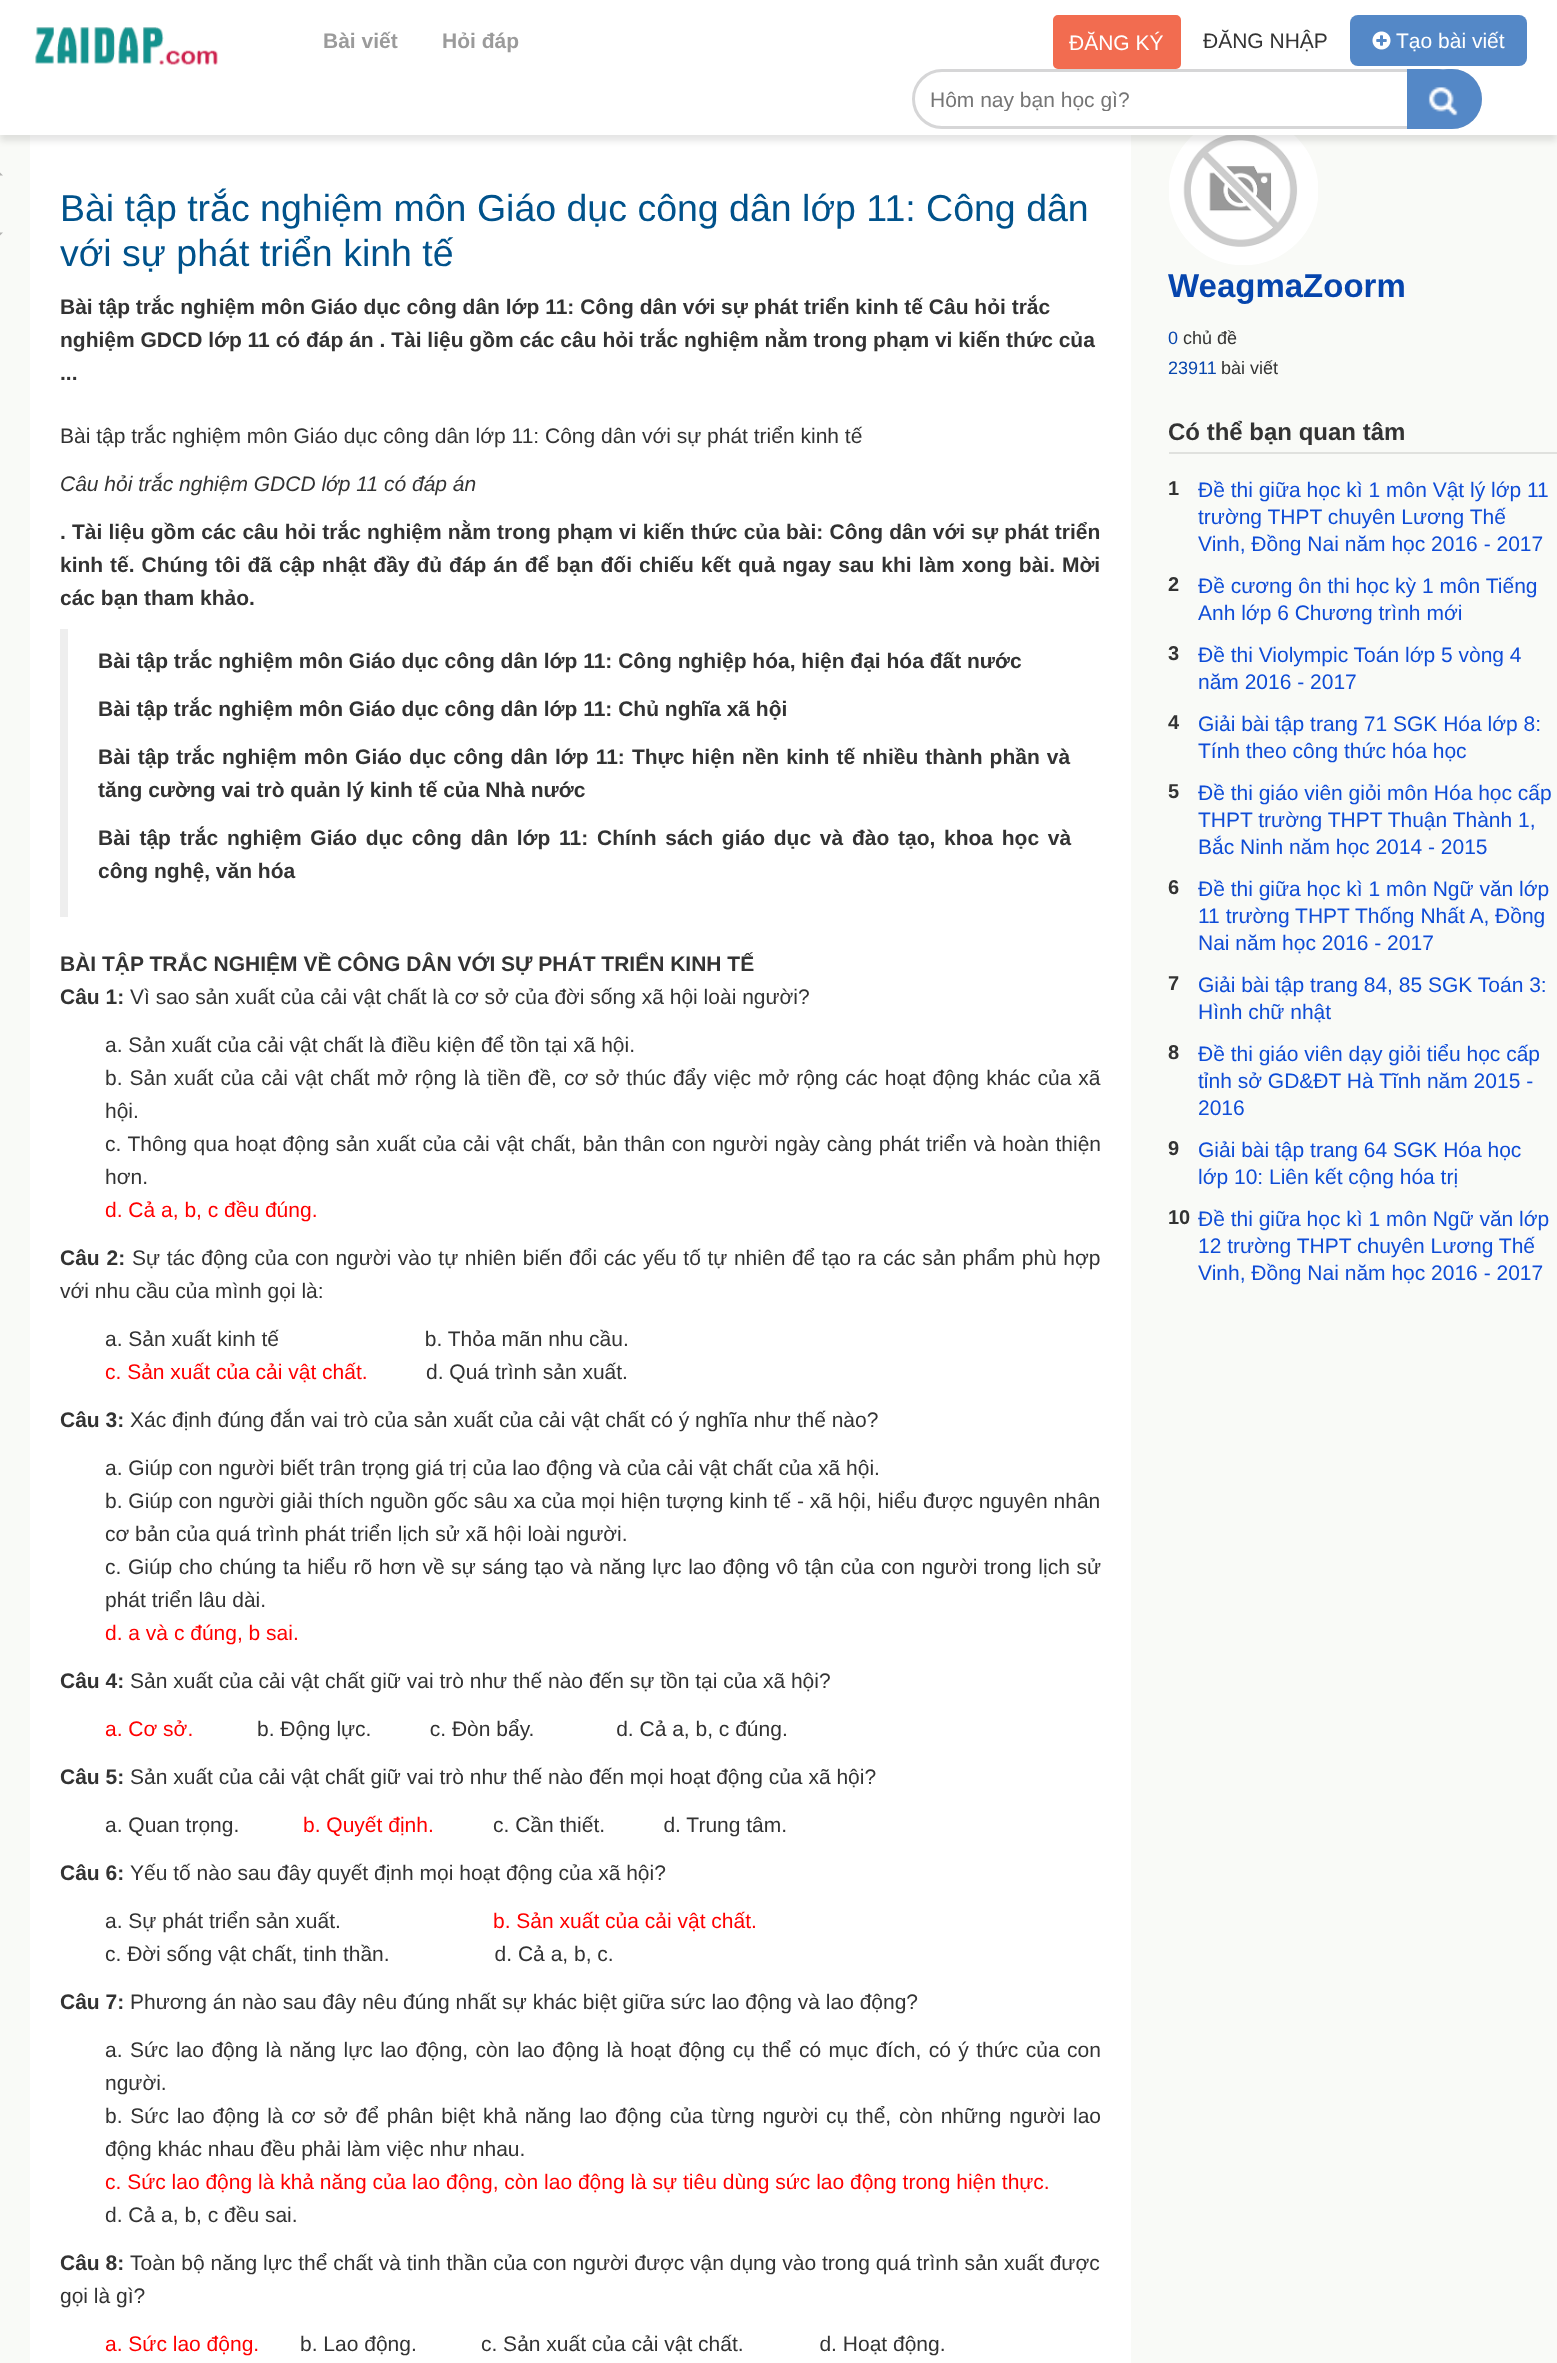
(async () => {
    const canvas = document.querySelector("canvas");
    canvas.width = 1557;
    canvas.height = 2363;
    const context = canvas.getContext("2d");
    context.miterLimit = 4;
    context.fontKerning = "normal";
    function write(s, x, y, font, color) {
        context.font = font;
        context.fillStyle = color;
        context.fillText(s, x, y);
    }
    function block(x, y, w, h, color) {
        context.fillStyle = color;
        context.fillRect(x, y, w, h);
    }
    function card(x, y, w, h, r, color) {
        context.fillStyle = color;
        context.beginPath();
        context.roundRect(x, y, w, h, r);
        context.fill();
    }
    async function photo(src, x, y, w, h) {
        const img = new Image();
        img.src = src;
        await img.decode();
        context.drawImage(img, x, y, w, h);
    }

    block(0, 0, 1557, 2363, "rgb(249, 250, 247)");
    block(30, 135, 1101, 2228, "rgb(255, 255, 255)");
    await photo("media/4.png", 1169, 135, 149, 130);
    context.fillStyle = "rgba(0, 0, 0, 0.1)";
    context.filter = "blur(3px)";
    context.beginPath();
    context.rect(0, 6, 1557, 135);
    context.fill();
    context.filter = "none";
    block(0, 0, 1557, 135, "rgb(255, 255, 255)");
    await photo("media/1.png", 35, 27, 183, 38);
    write("Bài viết", 323, 48, "bold 21px Liberation Sans", "rgb(155, 155, 155)");
    write("Hỏi đáp", 442, 48, "bold 21px Liberation Sans", "rgb(155, 155, 155)");
    context.fillStyle = "rgb(242, 108, 80)";
    context.beginPath();
    context.roundRect(1054, 16, 126, 52, 4);
    context.fill();
    context.strokeStyle = "rgb(242, 108, 79)";
    context.lineWidth = 2;
    context.stroke();
    write("ĐĂNG KÝ", 1069, 50, "21px Liberation Sans", "rgb(255, 255, 255)");
    write("ĐĂNG NHẬP", 1203, 48, "21px Liberation Sans", "rgb(51, 51, 51)");
    card(1350, 15, 177, 51, 8, "rgb(84, 136, 199)");
    await photo("media/2.png", 1372, 31, 19, 19);
    write("Tạo bài viết", 1396, 48, "21px Liberation Sans", "rgb(255, 255, 255)");
    context.beginPath();
    context.roundRect(913.5, 70.5, 567, 57, 28.5);
    context.strokeStyle = "rgb(214, 214, 215)";
    context.lineWidth = 3;
    context.stroke();
    context.save();
    context.beginPath();
    context.rect(930, 87, 459, 24);
    context.clip();
    write("Hôm nay bạn học gì?", 930, 107, "21px Liberation Sans", "rgb(117, 117, 117)");
    context.restore();
    context.fillStyle = "rgb(84, 136, 199)";
    context.beginPath();
    context.roundRect(1407, 69, 75, 60, [0, 30, 30, 0]);
    context.fill();
    await photo("media/3.png", 1428, 69, 30, 47);
    context.fillStyle = "rgb(179, 179, 178)";
    context.beginPath();
    context.moveTo(3, 175.5);
    context.lineTo(-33, 175.5);
    context.lineTo(-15, 157.5);
    context.closePath();
    context.fill();
    context.beginPath();
    context.moveTo(-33, 232.5);
    context.lineTo(3, 232.5);
    context.lineTo(-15, 250.5);
    context.closePath();
    context.fill();
    write("Bài tập trắc nghiệm môn Giáo dục công dân lớp 11: Công dân", 60, 221, "37.5px Liberation Sans", "rgb(0, 82, 139)");
    write("với sự phát triển kinh tế", 60, 266, "37.5px Liberation Sans", "rgb(0, 82, 139)");
    write("Bài tập trắc nghiệm môn Giáo dục công dân lớp 11: Công dân với sự phát triển kinh tế Câu hỏi trắc", 60, 314, "bold 21px Liberation Sans", "rgb(51, 51, 51)");
    write("nghiệm GDCD lớp 11 có đáp án . Tài liệu gồm các câu hỏi trắc nghiệm nằm trong phạm vi kiến thức của", 60, 347, "bold 21px Liberation Sans", "rgb(51, 51, 51)");
    write("...", 60, 380, "bold 21px Liberation Sans", "rgb(51, 51, 51)");
    write("Bài tập trắc nghiệm môn Giáo dục công dân lớp 11: Công dân với sự phát triển kinh tế", 60, 443, "21px Liberation Sans", "rgb(51, 51, 51)");
    write("Câu hỏi trắc nghiệm GDCD lớp 11 có đáp án", 60, 491, "italic 21px Liberation Sans", "rgb(51, 51, 51)");
    context.wordSpacing = "0.3px";
    write(". Tài liệu gồm các câu hỏi trắc nghiệm nằm trong phạm vi kiến thức của bài: Công dân với sự phát triển", 60, 539, "bold 21px Liberation Sans", "rgb(51, 51, 51)");
    context.wordSpacing = "1.1px";
    write("kinh tế. Chúng tôi đã cập nhật đầy đủ đáp án để bạn đối chiếu kết quả ngay sau khi làm xong bài. Mời", 60, 572, "bold 21px Liberation Sans", "rgb(51, 51, 51)");
    context.wordSpacing = "0px";
    write("các bạn tham khảo.", 60, 605, "bold 21px Liberation Sans", "rgb(51, 51, 51)");
    block(60, 629, 8, 288, "rgb(238, 238, 238)");
    write("Bài tập trắc nghiệm môn Giáo dục công dân lớp 11: Công nghiệp hóa, hiện đại hóa đất nước", 98, 668, "bold 21px Liberation Sans", "rgb(51, 51, 51)");
    write("Bài tập trắc nghiệm môn Giáo dục công dân lớp 11: Chủ nghĩa xã hội", 98, 716, "bold 21px Liberation Sans", "rgb(51, 51, 51)");
    context.wordSpacing = "1.25px";
    write("Bài tập trắc nghiệm môn Giáo dục công dân lớp 11: Thực hiện nền kinh tế nhiều thành phần và", 98, 764, "bold 21px Liberation Sans", "rgb(51, 51, 51)");
    context.wordSpacing = "0px";
    write("tăng cường vai trò quản lý kinh tế của Nhà nước", 98, 797, "bold 21px Liberation Sans", "rgb(51, 51, 51)");
    context.wordSpacing = "2.9px";
    write("Bài tập trắc nghiệm Giáo dục công dân lớp 11: Chính sách giáo dục và đào tạo, khoa học và", 98, 845, "bold 21px Liberation Sans", "rgb(51, 51, 51)");
    context.wordSpacing = "0px";
    write("công nghệ, văn hóa", 98, 878, "bold 21px Liberation Sans", "rgb(51, 51, 51)");
    write("BÀI TẬP TRẮC NGHIỆM VỀ CÔNG DÂN VỚI SỰ PHÁT TRIỂN KINH TẾ", 60, 971, "bold 21px Liberation Sans", "rgb(51, 51, 51)");
    write("Câu 1:", 60, 1004, "bold 21px Liberation Sans", "rgb(51, 51, 51)");
    write("Vì sao sản xuất của cải vật chất là cơ sở của đời sống xã hội loài người?", 130, 1004, "21px Liberation Sans", "rgb(51, 51, 51)");
    write("a. Sản xuất của cải vật chất là điều kiện để tồn tại xã hội.", 105, 1052, "21px Liberation Sans", "rgb(51, 51, 51)");
    context.wordSpacing = "1.1px";
    write("b. Sản xuất của cải vật chất mở rộng là tiền đề, cơ sở thúc đẩy việc mở rộng các hoạt động khác của xã", 105, 1085, "21px Liberation Sans", "rgb(51, 51, 51)");
    context.wordSpacing = "0px";
    write("hội.", 105, 1118, "21px Liberation Sans", "rgb(51, 51, 51)");
    context.wordSpacing = "0.7px";
    write("c. Thông qua hoạt động sản xuất của cải vật chất, bản thân con người ngày càng phát triển và hoàn thiện", 105, 1151, "21px Liberation Sans", "rgb(51, 51, 51)");
    context.wordSpacing = "0px";
    write("hơn.", 105, 1184, "21px Liberation Sans", "rgb(51, 51, 51)");
    write("d. Cả a, b, c đều đúng.", 105, 1217, "21px Liberation Sans", "rgb(255, 0, 0)");
    context.wordSpacing = "1px";
    write("Câu 2:", 60, 1265, "bold 21px Liberation Sans", "rgb(51, 51, 51)");
    context.wordSpacing = "0.75px";
    write("Sự tác động của con người vào tự nhiên biến đổi các yếu tố tự nhiên để tạo ra các sản phẩm phù hợp", 132, 1265, "21px Liberation Sans", "rgb(51, 51, 51)");
    context.wordSpacing = "0px";
    write("với nhu cầu của mình gọi là:", 60, 1298, "21px Liberation Sans", "rgb(51, 51, 51)");
    write("a. Sản xuất kinh tế                         b. Thỏa mãn nhu cầu.", 105, 1346, "21px Liberation Sans", "rgb(51, 51, 51)");
    write("c. Sản xuất của cải vật chất.", 105, 1379, "21px Liberation Sans", "rgb(255, 0, 0)");
    write("d. Quá trình sản xuất.", 426, 1379, "21px Liberation Sans", "rgb(51, 51, 51)");
    write("Câu 3:", 60, 1427, "bold 21px Liberation Sans", "rgb(51, 51, 51)");
    write("Xác định đúng đắn vai trò của sản xuất của cải vật chất có ý nghĩa như thế nào?", 130, 1427, "21px Liberation Sans", "rgb(51, 51, 51)");
    write("a. Giúp con người biết trân trọng giá trị của lao động và của cải vật chất của xã hội.", 105, 1475, "21px Liberation Sans", "rgb(51, 51, 51)");
    write("b. Giúp con người giải thích nguồn gốc sâu xa của mọi hiện tượng kinh tế - xã hội, hiểu được nguyên nhân", 105, 1508, "21px Liberation Sans", "rgb(51, 51, 51)");
    write("cơ bản của quá trình phát triển lịch sử xã hội loài người.", 105, 1541, "21px Liberation Sans", "rgb(51, 51, 51)");
    context.wordSpacing = "0.75px";
    write("c. Giúp cho chúng ta hiểu rõ hơn về sự sáng tạo và năng lực lao động vô tận của con người trong lịch sử", 105, 1574, "21px Liberation Sans", "rgb(51, 51, 51)");
    context.wordSpacing = "0px";
    write("phát triển lâu dài.", 105, 1607, "21px Liberation Sans", "rgb(51, 51, 51)");
    write("d. a và c đúng, b sai.", 105, 1640, "21px Liberation Sans", "rgb(255, 0, 0)");
    write("Câu 4:", 60, 1688, "bold 21px Liberation Sans", "rgb(51, 51, 51)");
    write("Sản xuất của cải vật chất giữ vai trò như thế nào đến sự tồn tại của xã hội?", 130, 1688, "21px Liberation Sans", "rgb(51, 51, 51)");
    write("a. Cơ sở.", 105, 1736, "21px Liberation Sans", "rgb(255, 0, 0)");
    write("b. Động lực.          c. Đòn bẩy.              d. Cả a, b, c đúng.", 257, 1736, "21px Liberation Sans", "rgb(51, 51, 51)");
    write("Câu 5:", 60, 1784, "bold 21px Liberation Sans", "rgb(51, 51, 51)");
    write("Sản xuất của cải vật chất giữ vai trò như thế nào đến mọi hoạt động của xã hội?", 130, 1784, "21px Liberation Sans", "rgb(51, 51, 51)");
    write("a. Quan trọng.", 105, 1832, "21px Liberation Sans", "rgb(51, 51, 51)");
    write("b. Quyết định.", 303, 1832, "21px Liberation Sans", "rgb(255, 0, 0)");
    write("c. Cần thiết.          d. Trung tâm.", 493, 1832, "21px Liberation Sans", "rgb(51, 51, 51)");
    write("Câu 6:", 60, 1880, "bold 21px Liberation Sans", "rgb(51, 51, 51)");
    write("Yếu tố nào sau đây quyết định mọi hoạt động của xã hội?", 130, 1880, "21px Liberation Sans", "rgb(51, 51, 51)");
    write("a. Sự phát triển sản xuất.", 105, 1928, "21px Liberation Sans", "rgb(51, 51, 51)");
    write("b. Sản xuất của cải vật chất.", 493, 1928, "21px Liberation Sans", "rgb(255, 0, 0)");
    write("c. Đời sống vật chất, tinh thần.                  d. Cả a, b, c.", 105, 1961, "21px Liberation Sans", "rgb(51, 51, 51)");
    write("Câu 7:", 60, 2009, "bold 21px Liberation Sans", "rgb(51, 51, 51)");
    write("Phương án nào sau đây nêu đúng nhất sự khác biệt giữa sức lao động và lao động?", 130, 2009, "21px Liberation Sans", "rgb(51, 51, 51)");
    context.wordSpacing = "1.6px";
    write("a. Sức lao động là năng lực lao động, còn lao động là hoạt động cụ thể có mục đích, có ý thức của con", 105, 2057, "21px Liberation Sans", "rgb(51, 51, 51)");
    context.wordSpacing = "0px";
    write("người.", 105, 2090, "21px Liberation Sans", "rgb(51, 51, 51)");
    context.wordSpacing = "2px";
    write("b. Sức lao động là cơ sở để phân biệt khả năng lao động của từng người cụ thể, còn những người lao", 105, 2123, "21px Liberation Sans", "rgb(51, 51, 51)");
    context.wordSpacing = "0px";
    write("động khác nhau đều phải làm việc như nhau.", 105, 2156, "21px Liberation Sans", "rgb(51, 51, 51)");
    write("c. Sức lao động là khả năng của lao động, còn lao động là sự tiêu dùng sức lao động trong hiện thực.", 105, 2189, "21px Liberation Sans", "rgb(255, 0, 0)");
    write("d. Cả a, b, c đều sai.", 105, 2222, "21px Liberation Sans", "rgb(51, 51, 51)");
    write("Câu 8:", 60, 2270, "bold 21px Liberation Sans", "rgb(51, 51, 51)");
    write("Toàn bộ năng lực thể chất và tinh thần của con người được vận dụng vào trong quá trình sản xuất được", 130, 2270, "21px Liberation Sans", "rgb(51, 51, 51)");
    write("gọi là gì?", 60, 2303, "21px Liberation Sans", "rgb(51, 51, 51)");
    write("a. Sức lao động.", 105, 2351, "21px Liberation Sans", "rgb(255, 0, 0)");
    write("b. Lao động.           c. Sản xuất của cải vật chất.             d. Hoạt động.", 300, 2351, "21px Liberation Sans", "rgb(51, 51, 51)");
    write("WeagmaZoorm", 1168, 297, "bold 33px Liberation Sans", "rgb(6, 69, 173)");
    write("0", 1168, 344, "18px Liberation Sans", "rgb(6, 69, 173)");
    write("chủ đề", 1183, 344, "18px Liberation Sans", "rgb(51, 51, 51)");
    write("23911", 1168, 374, "18px Liberation Sans", "rgb(6, 69, 173)");
    write("bài viết", 1221, 374, "18px Liberation Sans", "rgb(51, 51, 51)");
    block(1169, 452, 388, 2, "rgb(224, 225, 222)");
    write("Có thể bạn quan tâm", 1168, 440, "bold 24px Liberation Sans", "rgb(51, 51, 51)");
    write("1", 1168, 495, "bold 20px Liberation Sans", "rgb(51, 51, 51)");
    write("Đề thi giữa học kì 1 môn Vật lý lớp 11", 1198, 497, "21px Liberation Sans", "rgb(14, 76, 215)");
    write("trường THPT chuyên Lương Thế", 1198, 524, "21px Liberation Sans", "rgb(14, 76, 215)");
    write("Vinh, Đồng Nai năm học 2016 - 2017", 1198, 551, "21px Liberation Sans", "rgb(14, 76, 215)");
    write("2", 1168, 591, "bold 20px Liberation Sans", "rgb(51, 51, 51)");
    write("Đề cương ôn thi học kỳ 1 môn Tiếng", 1198, 593, "21px Liberation Sans", "rgb(14, 76, 215)");
    write("Anh lớp 6 Chương trình mới", 1198, 620, "21px Liberation Sans", "rgb(14, 76, 215)");
    write("3", 1168, 660, "bold 20px Liberation Sans", "rgb(51, 51, 51)");
    write("Đề thi Violympic Toán lớp 5 vòng 4", 1198, 662, "21px Liberation Sans", "rgb(14, 76, 215)");
    write("năm 2016 - 2017", 1198, 689, "21px Liberation Sans", "rgb(14, 76, 215)");
    write("4", 1168, 729, "bold 20px Liberation Sans", "rgb(51, 51, 51)");
    write("Giải bài tập trang 71 SGK Hóa lớp 8:", 1198, 731, "21px Liberation Sans", "rgb(14, 76, 215)");
    write("Tính theo công thức hóa học", 1198, 758, "21px Liberation Sans", "rgb(14, 76, 215)");
    write("5", 1168, 798, "bold 20px Liberation Sans", "rgb(51, 51, 51)");
    write("Đề thi giáo viên giỏi môn Hóa học cấp", 1198, 800, "21px Liberation Sans", "rgb(14, 76, 215)");
    write("THPT trường THPT Thuận Thành 1,", 1198, 827, "21px Liberation Sans", "rgb(14, 76, 215)");
    write("Bắc Ninh năm học 2014 - 2015", 1198, 854, "21px Liberation Sans", "rgb(14, 76, 215)");
    write("6", 1168, 894, "bold 20px Liberation Sans", "rgb(51, 51, 51)");
    write("Đề thi giữa học kì 1 môn Ngữ văn lớp", 1198, 896, "21px Liberation Sans", "rgb(14, 76, 215)");
    write("11 trường THPT Thống Nhất A, Đồng", 1198, 923, "21px Liberation Sans", "rgb(14, 76, 215)");
    write("Nai năm học 2016 - 2017", 1198, 950, "21px Liberation Sans", "rgb(14, 76, 215)");
    write("7", 1168, 990, "bold 20px Liberation Sans", "rgb(51, 51, 51)");
    write("Giải bài tập trang 84, 85 SGK Toán 3:", 1198, 992, "21px Liberation Sans", "rgb(14, 76, 215)");
    write("Hình chữ nhật", 1198, 1019, "21px Liberation Sans", "rgb(14, 76, 215)");
    write("8", 1168, 1059, "bold 20px Liberation Sans", "rgb(51, 51, 51)");
    write("Đề thi giáo viên dạy giỏi tiểu học cấp", 1198, 1061, "21px Liberation Sans", "rgb(14, 76, 215)");
    write("tỉnh sở GD&ĐT Hà Tĩnh năm 2015 -", 1198, 1088, "21px Liberation Sans", "rgb(14, 76, 215)");
    write("2016", 1198, 1115, "21px Liberation Sans", "rgb(14, 76, 215)");
    write("9", 1168, 1155, "bold 20px Liberation Sans", "rgb(51, 51, 51)");
    write("Giải bài tập trang 64 SGK Hóa học", 1198, 1157, "21px Liberation Sans", "rgb(14, 76, 215)");
    write("lớp 10: Liên kết cộng hóa trị", 1198, 1184, "21px Liberation Sans", "rgb(14, 76, 215)");
    write("10", 1168, 1224, "bold 20px Liberation Sans", "rgb(51, 51, 51)");
    write("Đề thi giữa học kì 1 môn Ngữ văn lớp", 1198, 1226, "21px Liberation Sans", "rgb(14, 76, 215)");
    write("12 trường THPT chuyên Lương Thế", 1198, 1253, "21px Liberation Sans", "rgb(14, 76, 215)");
    write("Vinh, Đồng Nai năm học 2016 - 2017", 1198, 1280, "21px Liberation Sans", "rgb(14, 76, 215)");
})();
